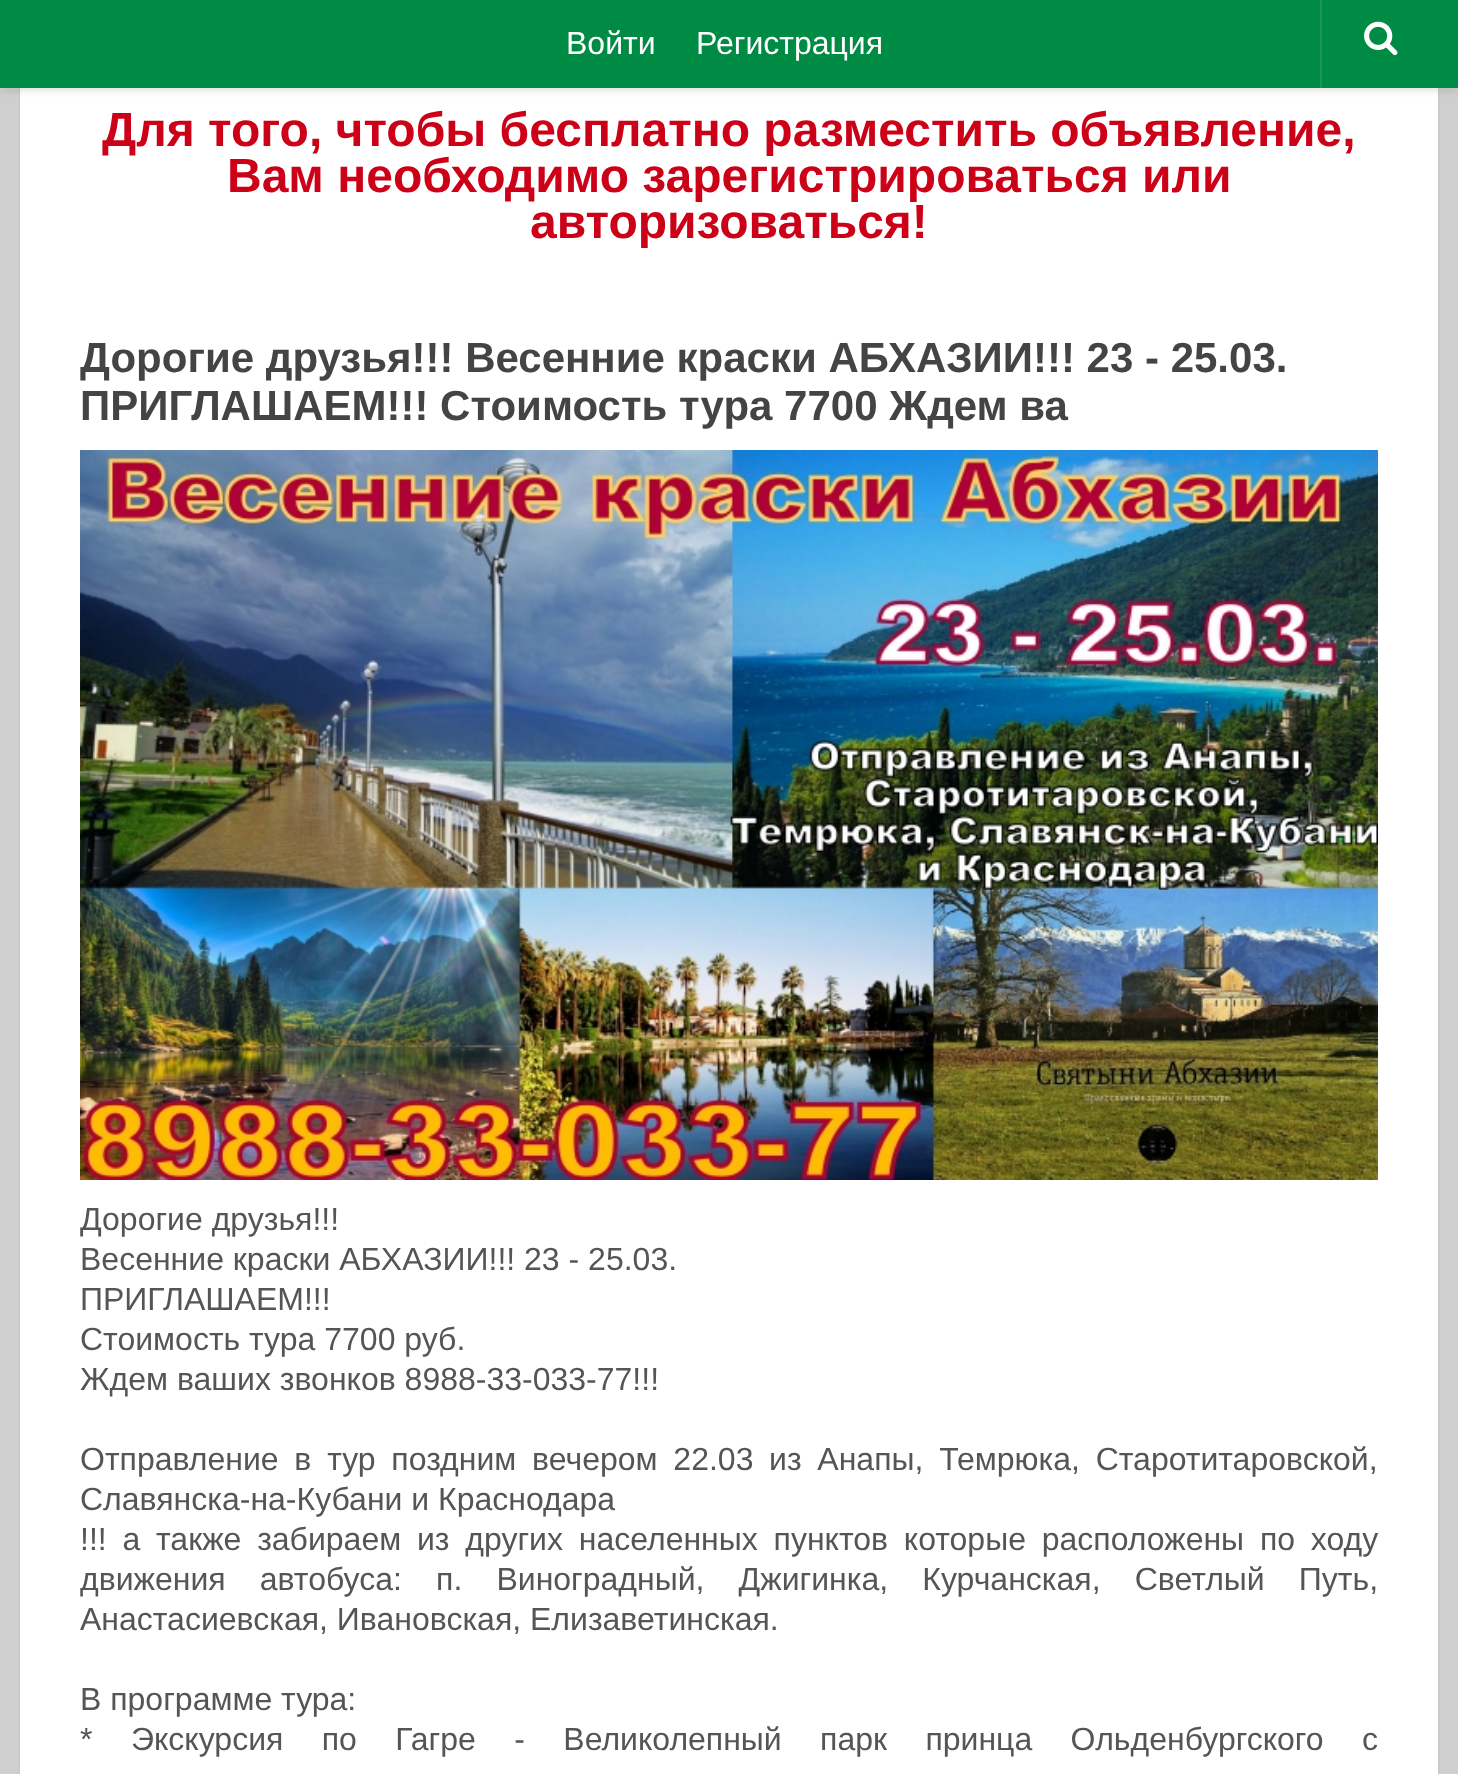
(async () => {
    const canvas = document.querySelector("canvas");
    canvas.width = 1458;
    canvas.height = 1774;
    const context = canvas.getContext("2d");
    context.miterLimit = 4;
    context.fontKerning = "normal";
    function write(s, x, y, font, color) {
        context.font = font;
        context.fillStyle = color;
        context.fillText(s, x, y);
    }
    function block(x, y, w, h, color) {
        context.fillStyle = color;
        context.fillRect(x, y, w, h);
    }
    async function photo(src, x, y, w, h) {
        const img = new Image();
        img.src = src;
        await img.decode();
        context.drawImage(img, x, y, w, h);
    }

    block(0, 0, 1458, 1774, "rgb(207, 207, 207)");
    context.fillStyle = "rgba(0, 0, 0, 0.1)";
    context.filter = "blur(1px)";
    context.beginPath();
    context.rect(20, -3, 1418, 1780);
    context.fill();
    context.filter = "none";
    block(20, 88, 1418, 1686, "rgb(255, 255, 255)");
    block(0, 88, 1458, 2, "rgba(255, 255, 255, 0.15)");
    context.fillStyle = "rgba(0, 0, 0, 0.2)";
    context.filter = "blur(5px)";
    context.beginPath();
    context.rect(0, 0, 1458, 88);
    context.fill();
    context.filter = "none";
    block(0, 0, 1458, 88, "rgb(0, 139, 69)");
    write("Войти", 566, 54, "32px Liberation Sans", "rgb(255, 255, 255)");
    write("Регистрация", 696, 54, "32px Liberation Sans", "rgb(255, 255, 255)");
    block(1320, 0, 2, 88, "rgb(26, 151, 88)");
    await photo("media/1.png", 1364, 21, 34, 35);
    write("Для того, чтобы бесплатно разместить объявление,", 102, 146, "bold 48px Liberation Sans", "rgb(204, 0, 23)");
    write("Вам необходимо зарегистрироваться или", 227, 192, "bold 48px Liberation Sans", "rgb(204, 0, 23)");
    write("авторизоваться!", 530, 238, "bold 48px Liberation Sans", "rgb(204, 0, 23)");
    write("Дорогие друзья!!! Весенние краски АБХАЗИИ!!! 23 - 25.03.", 80, 372, "bold 42px Liberation Sans", "rgb(68, 68, 68)");
    write("ПРИГЛАШАЕМ!!! Стоимость тура 7700 Ждем ва", 80, 420, "bold 42px Liberation Sans", "rgb(68, 68, 68)");
    await photo("media/2.png", 80, 450, 1298, 730);
    write("Дорогие друзья!!!", 80, 1230, "32px Liberation Sans", "rgb(85, 85, 85)");
    write("Весенние краски АБХАЗИИ!!! 23 - 25.03.", 80, 1270, "32px Liberation Sans", "rgb(85, 85, 85)");
    write("ПРИГЛАШАЕМ!!!", 80, 1310, "32px Liberation Sans", "rgb(85, 85, 85)");
    write("Стоимость тура 7700 руб.", 80, 1350, "32px Liberation Sans", "rgb(85, 85, 85)");
    write("Ждем ваших звонков 8988-33-033-77!!!", 80, 1390, "32px Liberation Sans", "rgb(85, 85, 85)");
    context.wordSpacing = "6.9px";
    write("Отправление в тур поздним вечером 22.03", 80, 1470, "32px Liberation Sans", "rgb(85, 85, 85)");
    write("из Анапы, Темрюка, Старотитаровской,", 769, 1470, "32px Liberation Sans", "rgb(85, 85, 85)");
    context.wordSpacing = "0px";
    write("Славянска-на-Кубани и Краснодара", 80, 1510, "32px Liberation Sans", "rgb(85, 85, 85)");
    context.wordSpacing = "6.9px";
    write("!!! а также забираем из других населенных пунктов которые расположены по ходу", 80, 1550, "32px Liberation Sans", "rgb(85, 85, 85)");
    context.wordSpacing = "25.25px";
    write("движения автобуса: п. Виноградный, Джигинка, Курчанская, Светлый Путь,", 80, 1590, "32px Liberation Sans", "rgb(85, 85, 85)");
    context.wordSpacing = "0px";
    write("Анастасиевская, Ивановская, Елизаветинская.", 80, 1630, "32px Liberation Sans", "rgb(85, 85, 85)");
    write("В программе тура:", 80, 1710, "32px Liberation Sans", "rgb(85, 85, 85)");
    write("*", 80, 1750, "32px Liberation Sans", "rgb(85, 85, 85)");
    context.wordSpacing = "29.5px";
    write("Экскурсия по Гагре - Великолепный парк принца Ольденбургского с", 131, 1750, "32px Liberation Sans", "rgb(85, 85, 85)");
})();
